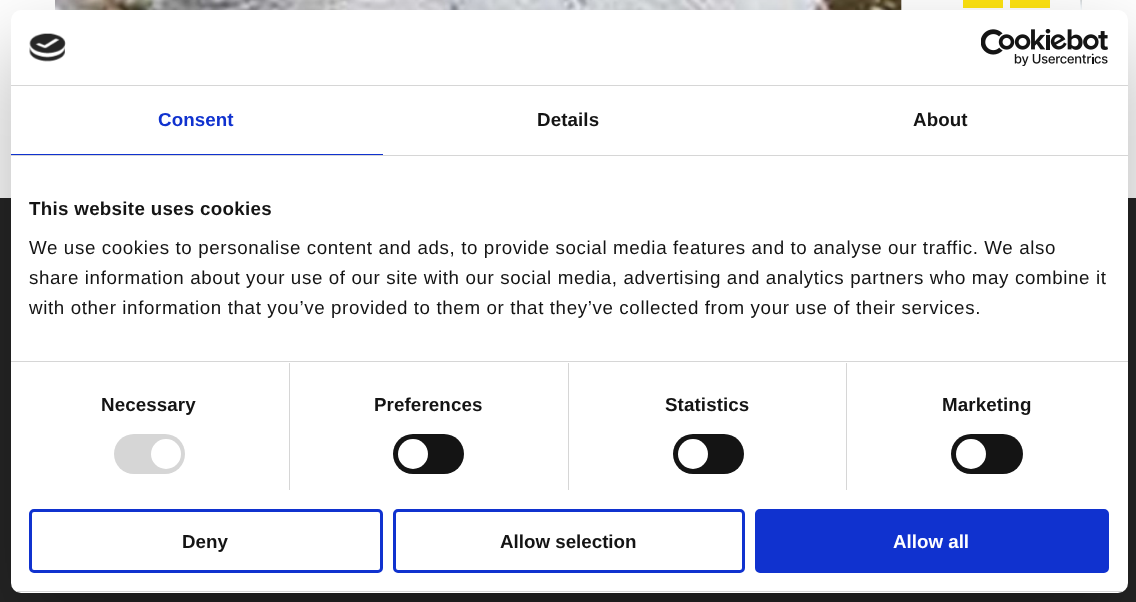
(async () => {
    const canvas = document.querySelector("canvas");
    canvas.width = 1136;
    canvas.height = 602;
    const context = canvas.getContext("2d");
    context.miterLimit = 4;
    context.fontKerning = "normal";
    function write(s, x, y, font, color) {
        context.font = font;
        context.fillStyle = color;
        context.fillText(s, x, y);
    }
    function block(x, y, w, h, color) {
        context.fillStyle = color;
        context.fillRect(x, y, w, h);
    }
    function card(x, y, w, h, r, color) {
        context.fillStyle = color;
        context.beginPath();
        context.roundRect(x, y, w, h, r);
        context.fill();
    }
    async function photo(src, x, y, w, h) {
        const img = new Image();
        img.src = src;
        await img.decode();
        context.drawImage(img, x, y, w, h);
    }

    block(0, 0, 1136, 602, "rgb(255, 255, 255)");
    await photo("media/1.png", 55, 0, 847, 10);
    await photo("media/2.png", 1080, 0, 2, 10);
    block(963, 0, 40, 8, "rgb(255, 228, 17)");
    block(1010, 0, 40, 8, "rgb(255, 228, 17)");
    block(0, 198, 1136, 404, "rgb(38, 38, 38)");
    context.fillStyle = "rgba(0, 0, 0, 0.3)";
    context.filter = "blur(42.5px)";
    context.beginPath();
    context.roundRect(11, 50, 1117, 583, 10);
    context.fill();
    context.filter = "none";
    card(11, 10, 1117, 583, 10, "rgb(255, 255, 255)");
    block(11, 85, 1117, 1, "rgb(214, 214, 214)");
    await photo("media/3.png", 29, 33, 37, 29);
    await photo("media/4.png", 981, 29, 127, 37);
    block(11, 155, 1117, 1, "rgb(214, 214, 214)");
    block(11, 154, 372, 1, "rgb(16, 50, 207)");
    context.letterSpacing = "0.1px";
    write("Consent", 158, 126, "bold 18.75px Liberation Sans", "rgb(16, 50, 207)");
    write("Details", 537, 126, "bold 18.75px Liberation Sans", "rgb(20, 20, 20)");
    write("About", 913, 126, "bold 18.75px Liberation Sans", "rgb(20, 20, 20)");
    block(11, 361, 1117, 1, "rgb(214, 214, 214)");
    context.letterSpacing = "0.3px";
    write("This website uses cookies", 29, 215, "bold 18.75px Liberation Sans", "rgb(20, 20, 20)");
    context.letterSpacing = "0.62px";
    write("We use cookies to personalise content and ads, to provide social media features and to analyse our traffic. We also", 29, 254, "18.75px Liberation Sans", "rgb(20, 20, 20)");
    write("share information about your use of our site with our social media, advertising and analytics partners who may combine it", 29, 284, "18.75px Liberation Sans", "rgb(20, 20, 20)");
    write("with other information that you’ve provided to them or that they’ve collected from your use of their services.", 29, 314, "18.75px Liberation Sans", "rgb(20, 20, 20)");
    block(289, 363, 1, 127, "rgb(214, 214, 214)");
    context.letterSpacing = "0.1px";
    write("Necessary", 101, 411, "bold 18.75px Liberation Sans", "rgb(20, 20, 20)");
    card(114, 434, 71, 40, 20, "rgb(214, 214, 214)");
    context.fillStyle = "rgb(255, 255, 255)";
    context.beginPath();
    context.arc(166, 454, 15, 0, Math.PI * 2);
    context.fill();
    block(568, 363, 1, 127, "rgb(214, 214, 214)");
    write("Preferences", 374, 411, "bold 18.75px Liberation Sans", "rgb(20, 20, 20)");
    card(393, 434, 71, 40, 20, "rgb(20, 20, 20)");
    context.fillStyle = "rgb(255, 255, 255)";
    context.beginPath();
    context.arc(413, 454, 15, 0, Math.PI * 2);
    context.fill();
    block(846, 363, 1, 127, "rgb(214, 214, 214)");
    write("Statistics", 665, 411, "bold 18.75px Liberation Sans", "rgb(20, 20, 20)");
    card(673, 434, 71, 40, 20, "rgb(20, 20, 20)");
    context.fillStyle = "rgb(255, 255, 255)";
    context.beginPath();
    context.arc(693, 454, 15, 0, Math.PI * 2);
    context.fill();
    write("Marketing", 942, 411, "bold 18.75px Liberation Sans", "rgb(20, 20, 20)");
    card(951, 434, 72, 40, 20, "rgb(20, 20, 20)");
    context.fillStyle = "rgb(255, 255, 255)";
    context.beginPath();
    context.arc(971, 454, 15, 0, Math.PI * 2);
    context.fill();
    context.save();
    context.beginPath();
    context.roundRect(11, 10, 1117, 583, 10);
    context.clip();
    block(11, 591, 1117, 1, "rgb(214, 214, 214)");
    context.restore();
    context.beginPath();
    context.roundRect(30.5, 510.5, 351, 61, 3.5);
    context.strokeStyle = "rgb(16, 50, 207)";
    context.lineWidth = 3;
    context.stroke();
    context.letterSpacing = "0px";
    write("Deny", 182, 548, "bold 18.75px Liberation Sans", "rgb(20, 20, 20)");
    context.beginPath();
    context.roundRect(394.5, 510.5, 349, 61, 3.5);
    context.stroke();
    write("Allow selection", 500, 548, "bold 18.75px Liberation Sans", "rgb(20, 20, 20)");
    context.fillStyle = "rgb(16, 50, 207)";
    context.beginPath();
    context.roundRect(756.5, 510.5, 351, 61, 3.5);
    context.fill();
    context.stroke();
    write("Allow all", 893, 548, "bold 18.75px Liberation Sans", "rgb(255, 255, 255)");
})();
